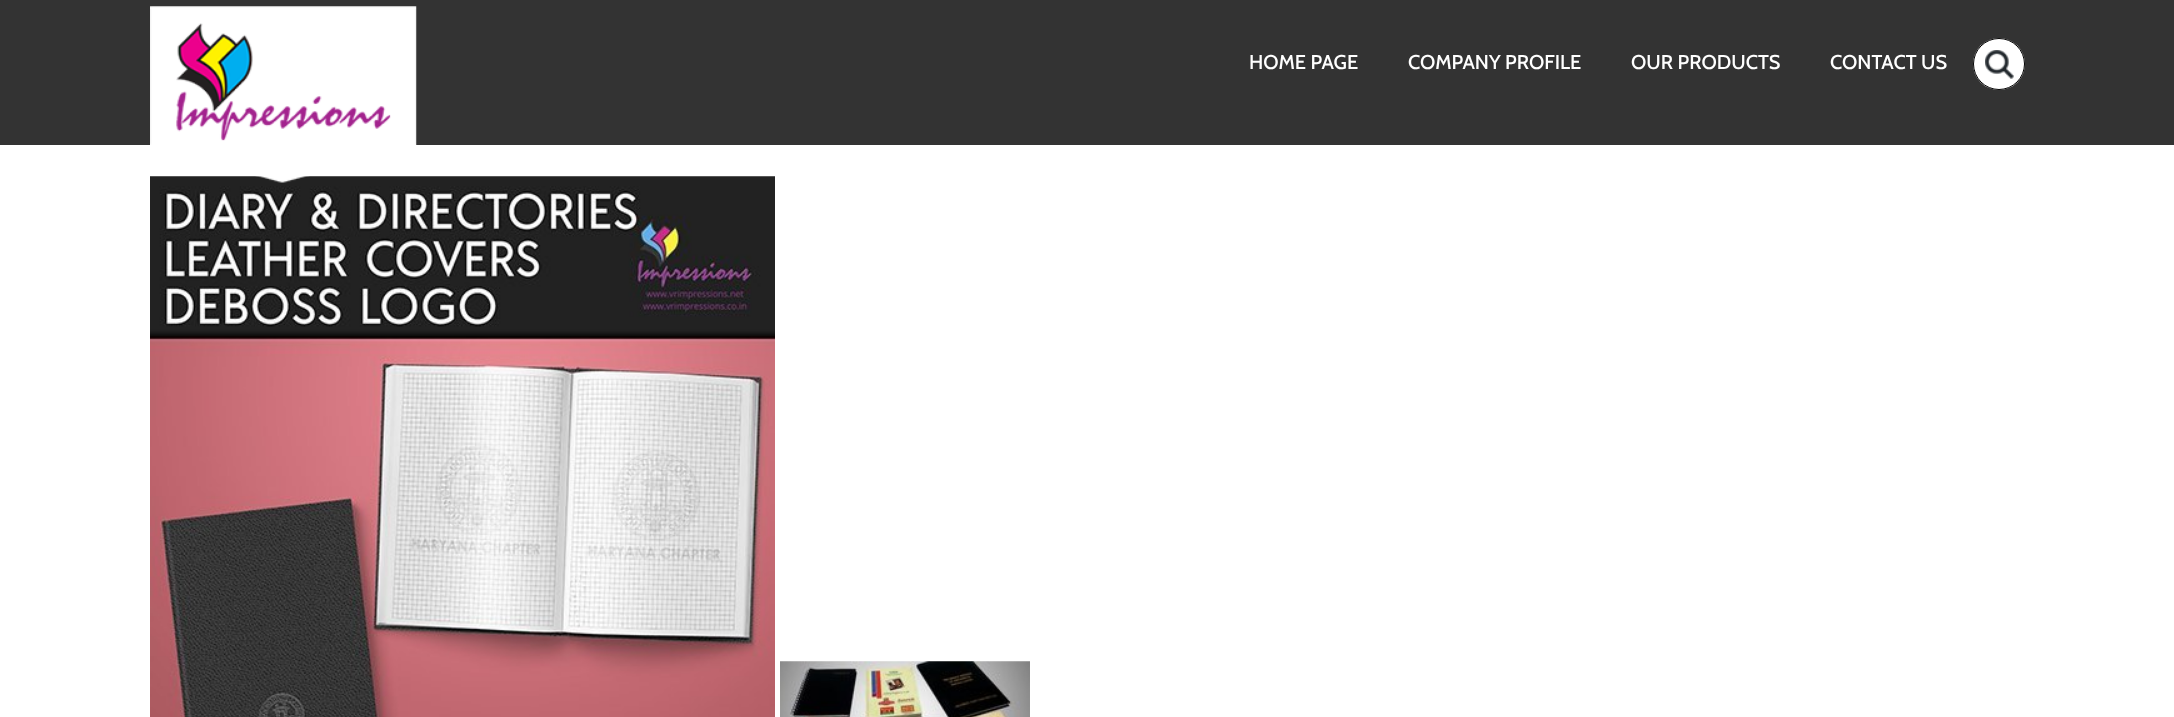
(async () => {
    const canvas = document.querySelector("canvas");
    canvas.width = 2174;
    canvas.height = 717;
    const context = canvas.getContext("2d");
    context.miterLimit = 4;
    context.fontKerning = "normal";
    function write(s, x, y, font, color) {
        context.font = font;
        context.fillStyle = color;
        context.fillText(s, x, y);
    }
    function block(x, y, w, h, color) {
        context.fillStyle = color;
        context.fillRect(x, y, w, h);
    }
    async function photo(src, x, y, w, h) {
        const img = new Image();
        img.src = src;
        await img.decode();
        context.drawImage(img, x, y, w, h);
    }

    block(0, 0, 2174, 717, "rgb(255, 255, 255)");
    block(0, 0, 2174, 145, "rgb(51, 51, 51)");
    await photo("media/3.png", 150, 176, 625, 541);
    await photo("media/1.png", 150, 6, 267, 177);
    write("HOME PAGE", 1249, 69, "500 20px Cabin", "rgb(255, 255, 255)");
    write("COMPANY PROFILE", 1408, 69, "500 20px Cabin", "rgb(255, 255, 255)");
    write("OUR PRODUCTS", 1631, 69, "500 20px Cabin", "rgb(255, 255, 255)");
    write("CONTACT US", 1830, 69, "500 20px Cabin", "rgb(255, 255, 255)");
    context.beginPath();
    context.arc(1999, 64, 26, 0, Math.PI * 2);
    context.fill();
    await photo("media/2.png", 1985, 50, 29, 29);
    context.beginPath();
    context.arc(1999, 64, 25.5, 0, Math.PI * 2);
    context.strokeStyle = "rgb(0, 0, 0)";
    context.stroke();
    await photo("media/4.png", 780, 661, 250, 56);
})();
